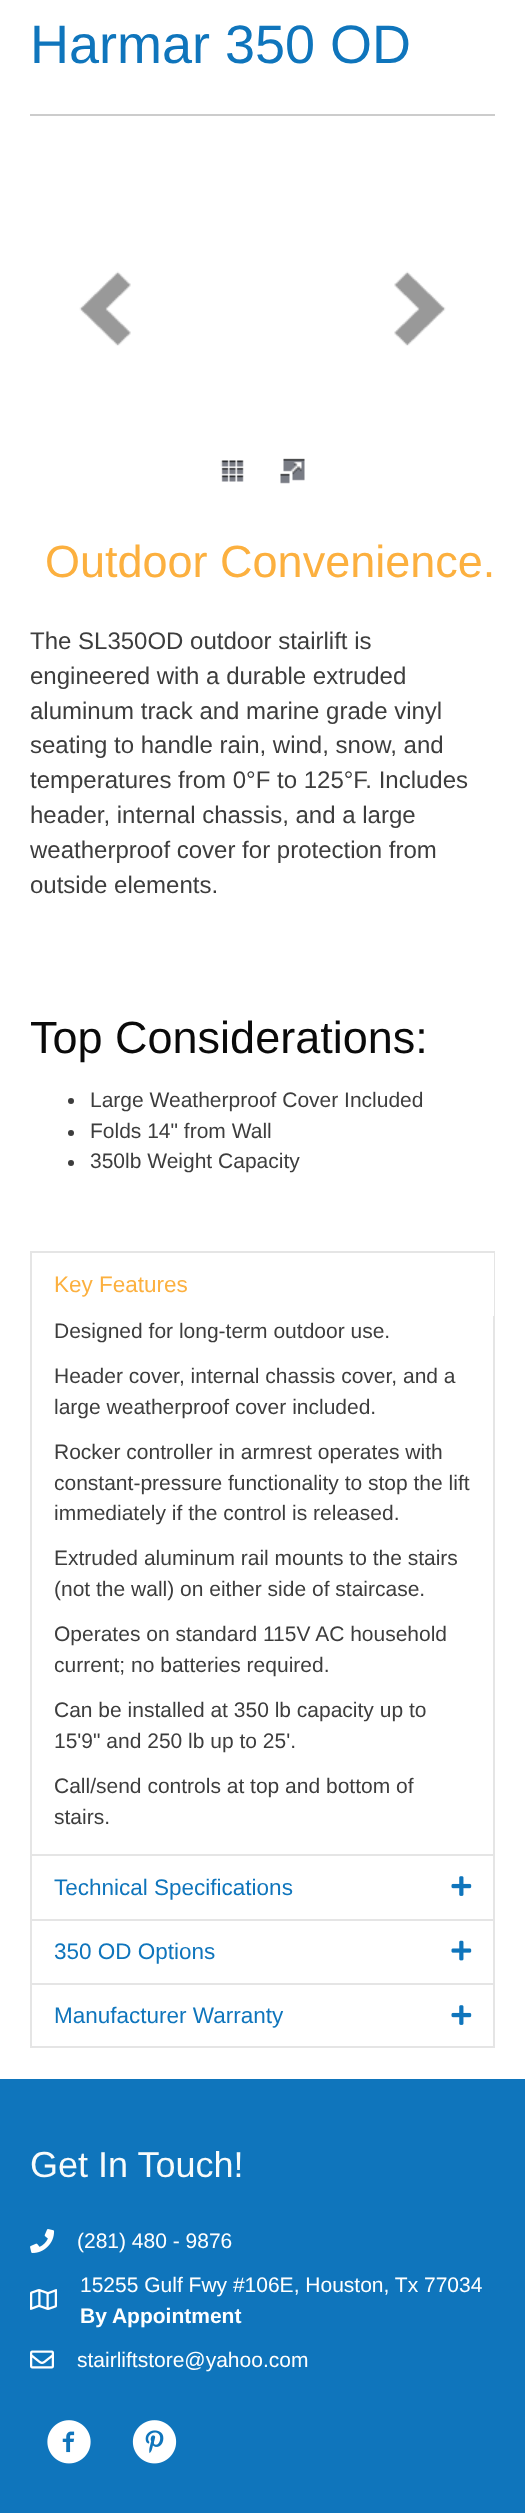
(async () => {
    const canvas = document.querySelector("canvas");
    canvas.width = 525;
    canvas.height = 2513;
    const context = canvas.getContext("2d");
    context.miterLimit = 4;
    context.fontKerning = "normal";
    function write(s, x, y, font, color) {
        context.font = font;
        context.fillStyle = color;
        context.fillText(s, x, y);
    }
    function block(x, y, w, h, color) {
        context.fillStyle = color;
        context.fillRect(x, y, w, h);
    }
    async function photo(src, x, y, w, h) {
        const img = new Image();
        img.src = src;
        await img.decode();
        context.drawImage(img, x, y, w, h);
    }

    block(0, 0, 525, 2513, "rgb(255, 255, 255)");
    write("Harmar 350 OD", 30, 63, "54px Liberation Sans", "rgb(15, 117, 188)");
    block(30, 114, 465, 2, "rgb(204, 204, 204)");
    await photo("media/1.png", 79, 271, 52, 75);
    await photo("media/2.png", 394, 271, 52, 75);
    await photo("media/3.png", 220, 460, 24, 22);
    await photo("media/4.png", 280, 458, 25, 26);
    write("Outdoor Convenience.", 45, 577, "45px Liberation Sans", "rgb(252, 176, 63)");
    write("The SL350OD outdoor stairlift is", 30, 649, "24px Liberation Sans", "rgb(61, 61, 61)");
    write("engineered with a durable extruded", 30, 684, "24px Liberation Sans", "rgb(61, 61, 61)");
    write("aluminum track and marine grade vinyl", 30, 719, "24px Liberation Sans", "rgb(61, 61, 61)");
    write("seating to handle rain, wind, snow, and", 30, 753, "24px Liberation Sans", "rgb(61, 61, 61)");
    write("temperatures from 0°F to 125°F. Includes", 30, 788, "24px Liberation Sans", "rgb(61, 61, 61)");
    write("header, internal chassis, and a large", 30, 823, "24px Liberation Sans", "rgb(61, 61, 61)");
    write("weatherproof cover for protection from", 30, 858, "24px Liberation Sans", "rgb(61, 61, 61)");
    write("outside elements.", 30, 893, "24px Liberation Sans", "rgb(61, 61, 61)");
    write("Top Considerations:", 30, 1053, "45px Liberation Sans", "rgb(10, 10, 10)");
    context.fillStyle = "rgb(61, 61, 61)";
    context.beginPath();
    context.arc(71, 1101, 3, 0, Math.PI * 2);
    context.fill();
    write("Large Weatherproof Cover Included", 90, 1107, "21px Liberation Sans", "rgb(61, 61, 61)");
    context.beginPath();
    context.arc(71, 1133, 3, 0, Math.PI * 2);
    context.fill();
    write("Folds 14\" from Wall", 90, 1138, "21px Liberation Sans", "rgb(61, 61, 61)");
    context.beginPath();
    context.arc(71, 1163, 3, 0, Math.PI * 2);
    context.fill();
    write("350lb Weight Capacity", 90, 1168, "21px Liberation Sans", "rgb(61, 61, 61)");
    context.strokeStyle = "rgb(229, 229, 229)";
    context.lineWidth = 2;
    context.strokeRect(31, 1252, 463, 795);
    block(32, 1854, 462, 2, "rgb(229, 229, 229)");
    block(493, 1253, 1, 63, "rgb(255, 255, 255)");
    write("Key Features", 54, 1292, "22.5px Liberation Sans", "rgb(252, 176, 63)");
    write("Designed for long-term outdoor use.", 54, 1338, "21px Liberation Sans", "rgb(61, 61, 61)");
    write("Header cover, internal chassis cover, and a", 54, 1383, "21px Liberation Sans", "rgb(61, 61, 61)");
    write("large weatherproof cover included.", 54, 1414, "21px Liberation Sans", "rgb(61, 61, 61)");
    write("Rocker controller in armrest operates with", 54, 1459, "21px Liberation Sans", "rgb(61, 61, 61)");
    write("constant-pressure functionality to stop the lift", 54, 1490, "21px Liberation Sans", "rgb(61, 61, 61)");
    write("immediately if the control is released.", 54, 1520, "21px Liberation Sans", "rgb(61, 61, 61)");
    write("Extruded aluminum rail mounts to the stairs", 54, 1565, "21px Liberation Sans", "rgb(61, 61, 61)");
    write("(not the wall) on either side of staircase.", 54, 1596, "21px Liberation Sans", "rgb(61, 61, 61)");
    write("Operates on standard 115V AC household", 54, 1641, "21px Liberation Sans", "rgb(61, 61, 61)");
    write("current; no batteries required.", 54, 1672, "21px Liberation Sans", "rgb(61, 61, 61)");
    write("Can be installed at 350 lb capacity up to", 54, 1717, "21px Liberation Sans", "rgb(61, 61, 61)");
    write("15'9\" and 250 lb up to 25'.", 54, 1748, "21px Liberation Sans", "rgb(61, 61, 61)");
    write("Call/send controls at top and bottom of", 54, 1793, "21px Liberation Sans", "rgb(61, 61, 61)");
    write("stairs.", 54, 1824, "21px Liberation Sans", "rgb(61, 61, 61)");
    block(32, 1919, 462, 2, "rgb(229, 229, 229)");
    write("Technical Specifications", 54, 1895, "22.5px Liberation Sans", "rgb(15, 117, 188)");
    await photo("media/5.png", 451, 1876, 21, 20);
    block(32, 1983, 462, 2, "rgb(229, 229, 229)");
    write("350 OD Options", 54, 1959, "22.5px Liberation Sans", "rgb(15, 117, 188)");
    await photo("media/6.png", 451, 1940, 21, 21);
    write("Manufacturer Warranty", 54, 2023, "22.5px Liberation Sans", "rgb(15, 117, 188)");
    await photo("media/5.png", 451, 2005, 21, 20);
    block(0, 2079, 525, 434, "rgb(15, 117, 188)");
    write("Get In Touch!", 30, 2177, "36px Liberation Sans", "rgb(248, 251, 251)");
    await photo("media/7.png", 30, 2229, 25, 24);
    write("(281) 480 - 9876", 77, 2248, "21px Liberation Sans", "rgb(255, 255, 255)");
    await photo("media/8.png", 30, 2289, 27, 21);
    write("15255 Gulf Fwy #106E, Houston, Tx 77034", 80, 2292, "21px Liberation Sans", "rgb(255, 255, 255)");
    write("By Appointment", 80, 2323, "bold 21px Liberation Sans", "rgb(255, 255, 255)");
    await photo("media/9.png", 30, 2350, 24, 19);
    write("stairliftstore@yahoo.com", 77, 2367, "21px Liberation Sans", "rgb(255, 255, 255)");
    await photo("media/10.png", 47, 2420, 44, 44);
    await photo("media/11.png", 132, 2420, 45, 44);
})();
